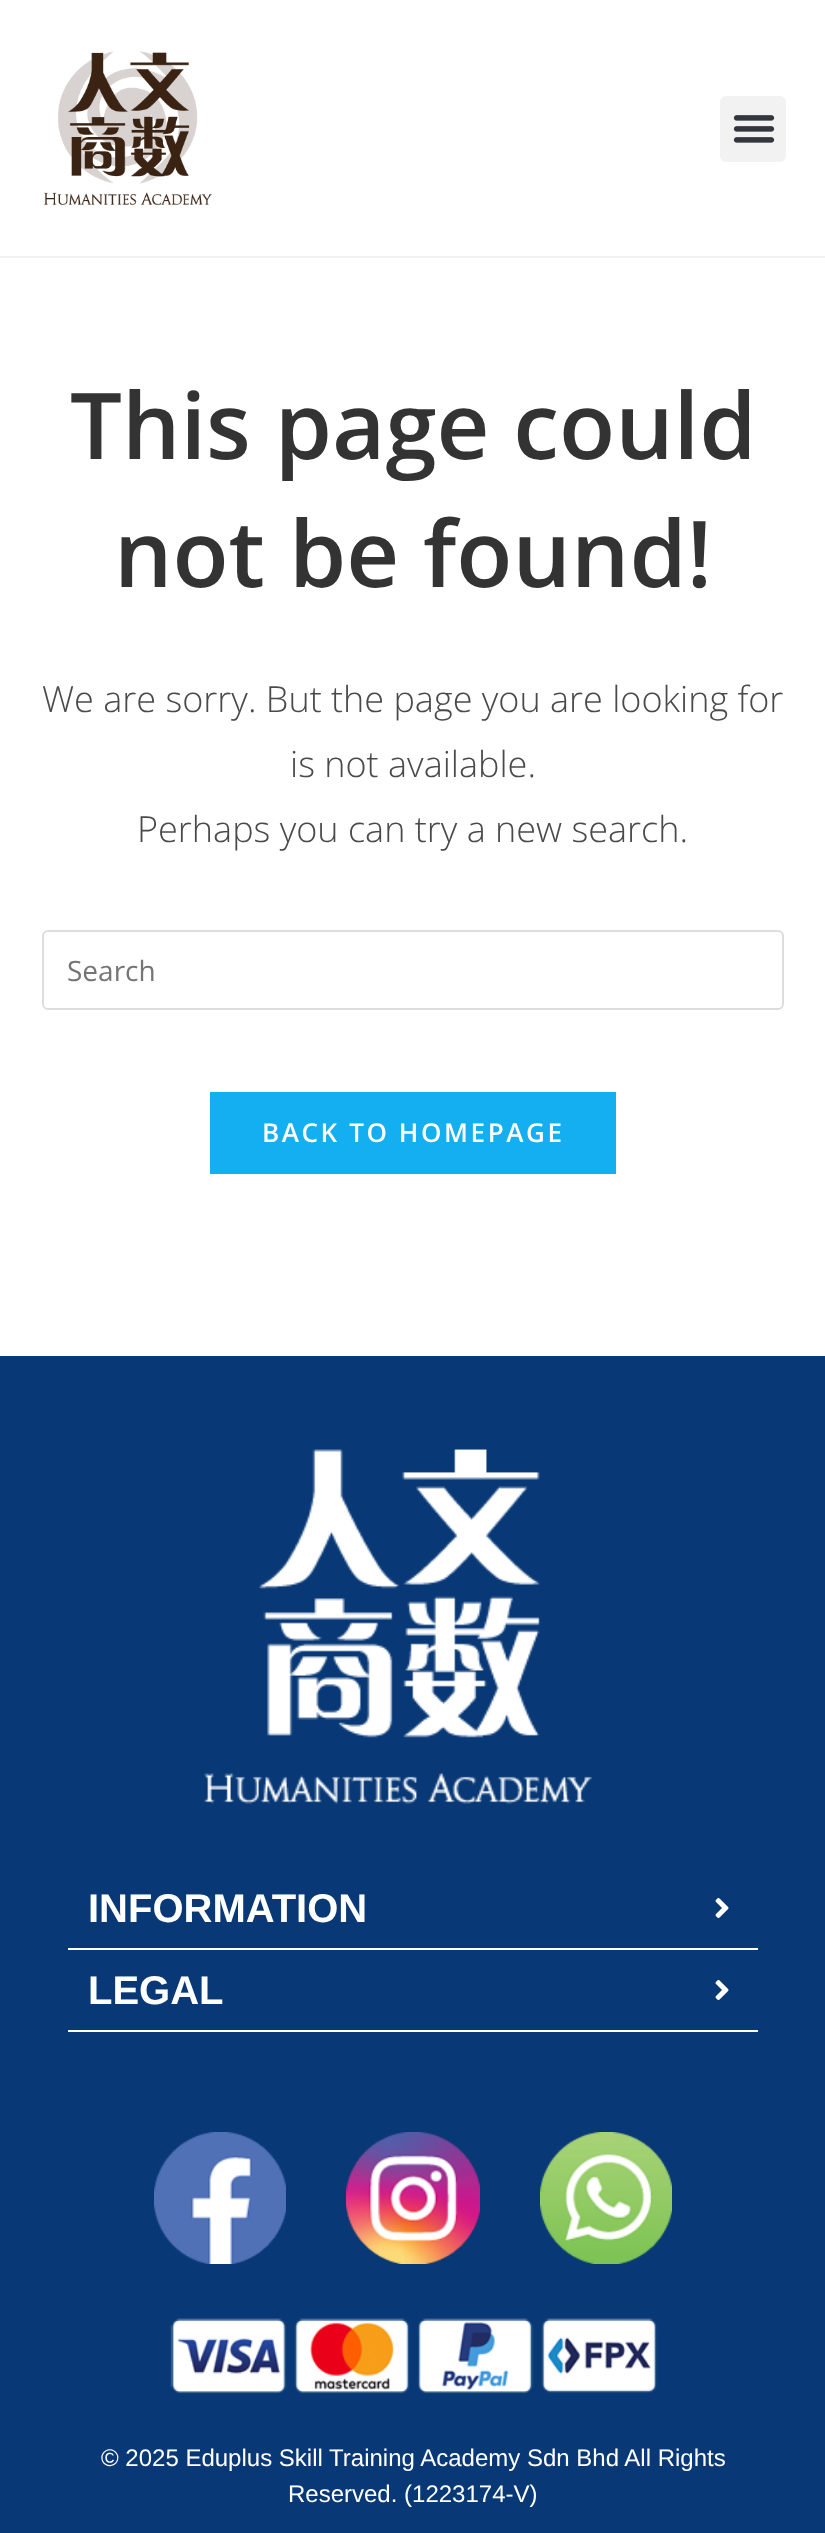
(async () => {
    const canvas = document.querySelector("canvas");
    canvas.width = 825;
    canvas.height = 2533;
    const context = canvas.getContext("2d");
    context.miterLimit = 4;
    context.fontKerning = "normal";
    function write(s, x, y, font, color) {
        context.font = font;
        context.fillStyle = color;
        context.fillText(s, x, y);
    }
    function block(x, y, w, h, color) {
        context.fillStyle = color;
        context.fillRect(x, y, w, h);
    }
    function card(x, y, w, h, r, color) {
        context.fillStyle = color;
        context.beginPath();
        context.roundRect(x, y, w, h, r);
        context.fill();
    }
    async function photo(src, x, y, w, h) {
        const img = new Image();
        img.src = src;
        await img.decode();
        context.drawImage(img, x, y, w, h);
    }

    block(0, 0, 825, 2533, "rgb(255, 255, 255)");
    block(0, 256, 825, 2, "rgb(241, 241, 241)");
    await photo("media/1.png", 44, 51, 168, 154);
    card(720, 96, 66, 66, 6, "rgb(242, 242, 242)");
    await photo("media/2.png", 733, 115, 42, 28);
    write("This page could", 70, 459, "600 92px Open Sans", "rgb(51, 51, 51)");
    write("not be found!", 114, 587, "600 92px Open Sans", "rgb(51, 51, 51)");
    write("We are sorry. But the page you are looking for", 42, 712, "300 36px Open Sans", "rgb(74, 74, 74)");
    write("is not available.", 290, 777, "300 36px Open Sans", "rgb(74, 74, 74)");
    write("Perhaps you can try a new search.", 137, 842, "300 36px Open Sans", "rgb(74, 74, 74)");
    context.beginPath();
    context.roundRect(43, 931, 740, 78, 5);
    context.strokeStyle = "rgb(221, 221, 221)";
    context.lineWidth = 2;
    context.stroke();
    write("Search", 67, 981, "28px Open Sans", "rgb(117, 117, 117)");
    block(210, 1092, 406, 82, "rgb(19, 175, 240)");
    context.letterSpacing = "2.6px";
    write("BACK TO HOMEPAGE", 262, 1142, "600 26px Open Sans", "rgb(255, 255, 255)");
    block(0, 1356, 825, 1177, "rgb(8, 57, 118)");
    await photo("media/3.png", 204, 1449, 388, 355);
    block(68, 1948, 690, 2, "rgb(255, 255, 255)");
    context.letterSpacing = "0px";
    write("INFORMATION", 88, 1922, "bold 40px Liberation Sans", "rgb(255, 255, 255)");
    await photo("media/4.png", 715, 1898, 14, 20);
    block(68, 2030, 690, 2, "rgb(255, 255, 255)");
    write("LEGAL", 88, 2004, "bold 40px Liberation Sans", "rgb(255, 255, 255)");
    await photo("media/4.png", 715, 1980, 14, 20);
    await photo("media/5.png", 154, 2132, 132, 132);
    await photo("media/6.png", 346, 2132, 134, 132);
    await photo("media/7.png", 540, 2132, 132, 132);
    await photo("media/8.png", 170, 2318, 488, 76);
    write("© 2025 Eduplus Skill Training Academy Sdn Bhd All Rights", 101, 2466, "24px Liberation Sans", "rgb(255, 255, 255)");
    write("Reserved. (1223174-V)", 288, 2502, "24px Liberation Sans", "rgb(255, 255, 255)");
})();
